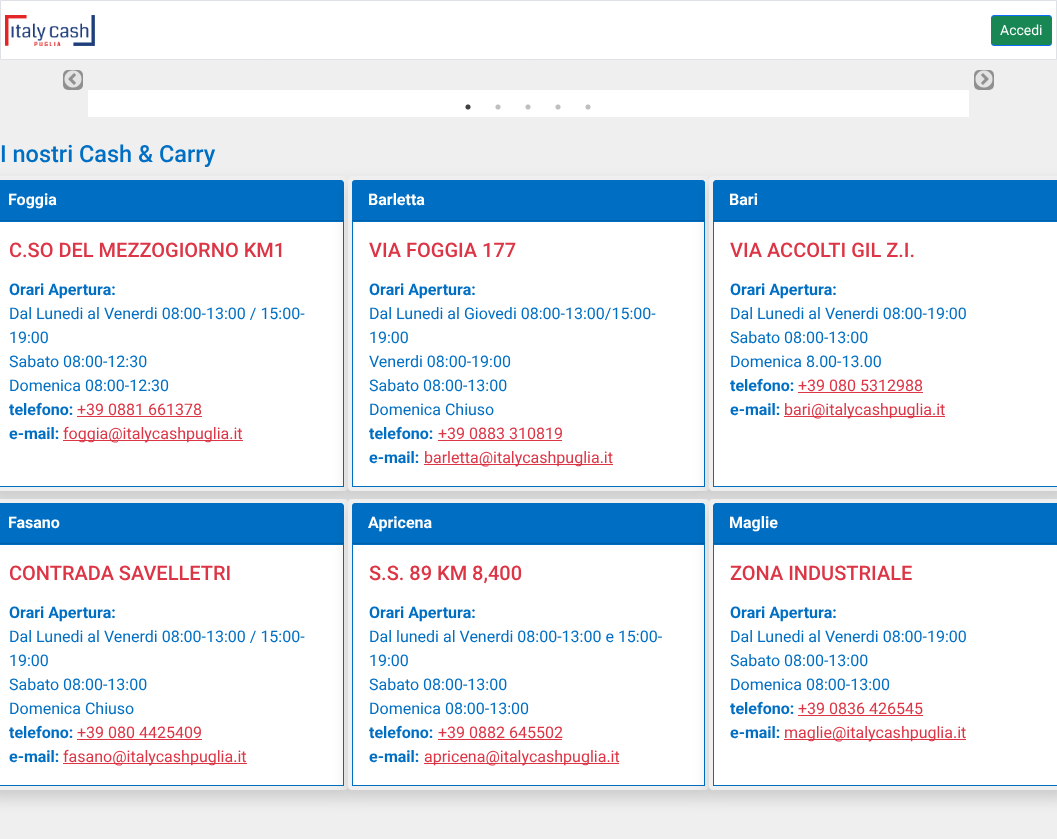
(async () => {
    const canvas = document.querySelector("canvas");
    canvas.width = 1057;
    canvas.height = 839;
    const context = canvas.getContext("2d");
    context.miterLimit = 4;
    context.fontKerning = "normal";
    function write(s, x, y, font, color) {
        context.font = font;
        context.fillStyle = color;
        context.fillText(s, x, y);
    }
    function block(x, y, w, h, color) {
        context.fillStyle = color;
        context.fillRect(x, y, w, h);
    }
    function card(x, y, w, h, r, color) {
        context.fillStyle = color;
        context.beginPath();
        context.roundRect(x, y, w, h, r);
        context.fill();
    }
    async function photo(src, x, y, w, h) {
        const img = new Image();
        img.src = src;
        await img.decode();
        context.drawImage(img, x, y, w, h);
    }

    block(0, 0, 1057, 839, "rgb(239, 239, 239)");
    context.fillStyle = "rgb(255, 255, 255)";
    context.beginPath();
    context.rect(0.5, 0.5, 1056, 59);
    context.fill();
    context.strokeStyle = "rgb(222, 226, 230)";
    context.stroke();
    await photo("media/1.png", 5, 15, 90, 31);
    context.fillStyle = "rgb(25, 135, 84)";
    context.beginPath();
    context.roundRect(991.5, 15.5, 60, 30, 2.5);
    context.fill();
    context.strokeStyle = "rgb(13, 110, 253)";
    context.stroke();
    write("Accedi", 1000, 35, "14px Roboto", "rgb(255, 255, 255)");
    card(63, 70, 20, 20, 5, "rgb(144, 144, 144)");
    await photo("media/2.png", 64, 70, 18, 18);
    card(974, 70, 20, 20, 5, "rgb(144, 144, 144)");
    await photo("media/3.png", 975, 70, 18, 18);
    block(88, 90, 881, 27, "rgb(255, 255, 255)");
    await photo("media/4.png", 465, 104, 6, 6);
    await photo("media/5.png", 495, 104, 6, 6);
    await photo("media/5.png", 525, 104, 6, 6);
    await photo("media/5.png", 555, 104, 6, 6);
    await photo("media/5.png", 585, 104, 6, 6);
    write("I nostri Cash & Carry", 0, 162, "500 23.5px Roboto", "rgb(0, 111, 195)");
    context.fillStyle = "rgba(0, 0, 0, 0.15)";
    context.filter = "blur(8px)";
    context.beginPath();
    context.roundRect(-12, 184, 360, 315, 4);
    context.fill();
    context.filter = "none";
    context.fillStyle = "rgb(255, 255, 255)";
    context.beginPath();
    context.roundRect(-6, 178, 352, 311, 2);
    context.fill();
    context.strokeStyle = "rgb(239, 239, 239)";
    context.lineWidth = 4;
    context.stroke();
    context.fillStyle = "rgb(0, 111, 195)";
    context.beginPath();
    context.moveTo(0, 180);
    context.lineTo(341, 180);
    context.bezierCurveTo(342.5, 180, 344, 181.5, 344, 183);
    context.lineTo(344, 221);
    context.lineTo(-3, 221);
    context.lineTo(-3, 183);
    context.bezierCurveTo(-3, 181.5, -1.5, 180, 0, 180);
    context.closePath();
    context.fill();
    block(0, 220, 344, 1, "rgb(0, 97, 171)");
    write("Foggia", 8, 205, "bold 16px Roboto", "rgb(255, 255, 255)");
    context.strokeStyle = "rgb(0, 111, 195)";
    context.lineWidth = 1;
    context.strokeRect(-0.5, 221.5, 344, 265);
    write("C.SO DEL MEZZOGIORNO KM1", 9, 257, "500 20px Roboto", "rgb(220, 53, 69)");
    write("Orari Apertura:", 9, 295, "bold 16px Roboto", "rgb(0, 111, 195)");
    write("Dal Lunedi al Venerdi 08:00-13:00 / 15:00-", 9, 319, "16px Roboto", "rgb(0, 111, 195)");
    write("19:00", 9, 343, "16px Roboto", "rgb(0, 111, 195)");
    write("Sabato 08:00-12:30", 9, 367, "16px Roboto", "rgb(0, 111, 195)");
    write("Domenica 08:00-12:30", 9, 391, "16px Roboto", "rgb(0, 111, 195)");
    write("telefono:", 9, 415, "bold 16px Roboto", "rgb(0, 111, 195)");
    write("+39 0881 661378", 77, 415, "16px Roboto", "rgb(220, 53, 69)");
    block(77, 416, 125, 1, "rgb(220, 53, 69)");
    write("e-mail:", 9, 439, "bold 16px Roboto", "rgb(0, 111, 195)");
    block(63, 440, 180, 1, "rgb(220, 53, 69)");
    write("foggia@italycashpuglia.it", 63, 439, "16px Roboto", "rgb(220, 53, 69)");
    context.fillStyle = "rgba(0, 0, 0, 0.15)";
    context.filter = "blur(8px)";
    context.beginPath();
    context.roundRect(348, 184, 361, 315, 4);
    context.fill();
    context.filter = "none";
    context.fillStyle = "rgb(255, 255, 255)";
    context.beginPath();
    context.roundRect(350, 178, 357, 311, 2);
    context.fill();
    context.strokeStyle = "rgb(239, 239, 239)";
    context.lineWidth = 4;
    context.stroke();
    context.fillStyle = "rgb(0, 111, 195)";
    context.beginPath();
    context.roundRect(352, 180, 353, 41, [3, 3, 0, 0]);
    context.fill();
    block(352, 220, 353, 1, "rgb(0, 97, 171)");
    write("Barletta", 368, 205, "bold 16px Roboto", "rgb(255, 255, 255)");
    context.strokeStyle = "rgb(0, 111, 195)";
    context.lineWidth = 1;
    context.strokeRect(352.5, 221.5, 352, 265);
    write("VIA FOGGIA 177", 369, 257, "500 20px Roboto", "rgb(220, 53, 69)");
    write("Orari Apertura:", 369, 295, "bold 16px Roboto", "rgb(0, 111, 195)");
    write("Dal Lunedi al Giovedi 08:00-13:00/15:00-", 369, 319, "16px Roboto", "rgb(0, 111, 195)");
    write("19:00", 369, 343, "16px Roboto", "rgb(0, 111, 195)");
    write("Venerdi 08:00-19:00", 369, 367, "16px Roboto", "rgb(0, 111, 195)");
    write("Sabato 08:00-13:00", 369, 391, "16px Roboto", "rgb(0, 111, 195)");
    write("Domenica Chiuso", 369, 415, "16px Roboto", "rgb(0, 111, 195)");
    write("telefono:", 369, 439, "bold 16px Roboto", "rgb(0, 111, 195)");
    write("+39 0883 310819", 438, 439, "16px Roboto", "rgb(220, 53, 69)");
    block(438, 440, 124, 1, "rgb(220, 53, 69)");
    write("e-mail:", 369, 463, "bold 16px Roboto", "rgb(0, 111, 195)");
    block(424, 464, 189, 1, "rgb(220, 53, 69)");
    write("barletta@italycashpuglia.it", 424, 463, "16px Roboto", "rgb(220, 53, 69)");
    context.fillStyle = "rgba(0, 0, 0, 0.15)";
    context.filter = "blur(8px)";
    context.beginPath();
    context.roundRect(709, 184, 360, 315, 4);
    context.fill();
    context.filter = "none";
    context.fillStyle = "rgb(255, 255, 255)";
    context.beginPath();
    context.roundRect(711, 178, 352, 311, 2);
    context.fill();
    context.strokeStyle = "rgb(239, 239, 239)";
    context.lineWidth = 4;
    context.stroke();
    context.fillStyle = "rgb(0, 111, 195)";
    context.beginPath();
    context.moveTo(716, 180);
    context.lineTo(1057, 180);
    context.bezierCurveTo(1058.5, 180, 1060, 181.5, 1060, 183);
    context.lineTo(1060, 221);
    context.lineTo(713, 221);
    context.lineTo(713, 183);
    context.bezierCurveTo(713, 181.5, 714.5, 180, 716, 180);
    context.closePath();
    context.fill();
    block(713, 220, 344, 1, "rgb(0, 97, 171)");
    write("Bari", 729, 205, "bold 16px Roboto", "rgb(255, 255, 255)");
    context.strokeStyle = "rgb(0, 111, 195)";
    context.lineWidth = 1;
    context.strokeRect(713.5, 221.5, 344, 265);
    write("VIA ACCOLTI GIL Z.I.", 730, 257, "500 20px Roboto", "rgb(220, 53, 69)");
    write("Orari Apertura:", 730, 295, "bold 16px Roboto", "rgb(0, 111, 195)");
    write("Dal Lunedi al Venerdi 08:00-19:00", 730, 319, "16px Roboto", "rgb(0, 111, 195)");
    write("Sabato 08:00-13:00", 730, 343, "16px Roboto", "rgb(0, 111, 195)");
    write("Domenica 8.00-13.00", 730, 367, "16px Roboto", "rgb(0, 111, 195)");
    write("telefono:", 730, 391, "bold 16px Roboto", "rgb(0, 111, 195)");
    write("+39 080 5312988", 798, 391, "16px Roboto", "rgb(220, 53, 69)");
    block(798, 392, 125, 1, "rgb(220, 53, 69)");
    write("e-mail:", 730, 415, "bold 16px Roboto", "rgb(0, 111, 195)");
    block(784, 416, 161, 1, "rgb(220, 53, 69)");
    write("bari@italycashpuglia.it", 784, 415, "16px Roboto", "rgb(220, 53, 69)");
    context.fillStyle = "rgba(0, 0, 0, 0.15)";
    context.filter = "blur(8px)";
    context.beginPath();
    context.roundRect(-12, 507, 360, 291, 4);
    context.fill();
    context.filter = "none";
    context.fillStyle = "rgb(255, 255, 255)";
    context.beginPath();
    context.roundRect(-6, 501, 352, 287, 2);
    context.fill();
    context.strokeStyle = "rgb(239, 239, 239)";
    context.lineWidth = 4;
    context.stroke();
    context.fillStyle = "rgb(0, 111, 195)";
    context.beginPath();
    context.moveTo(0, 503);
    context.lineTo(341, 503);
    context.bezierCurveTo(342.5, 503, 344, 504.5, 344, 506);
    context.lineTo(344, 544);
    context.lineTo(-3, 544);
    context.lineTo(-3, 506);
    context.bezierCurveTo(-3, 504.5, -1.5, 503, 0, 503);
    context.closePath();
    context.fill();
    block(0, 543, 344, 1, "rgb(0, 97, 171)");
    write("Fasano", 8, 528, "bold 16px Roboto", "rgb(255, 255, 255)");
    context.strokeStyle = "rgb(0, 111, 195)";
    context.lineWidth = 1;
    context.strokeRect(-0.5, 544.5, 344, 241);
    write("CONTRADA SAVELLETRI", 9, 580, "500 20px Roboto", "rgb(220, 53, 69)");
    write("Orari Apertura:", 9, 618, "bold 16px Roboto", "rgb(0, 111, 195)");
    write("Dal Lunedi al Venerdi 08:00-13:00 / 15:00-", 9, 642, "16px Roboto", "rgb(0, 111, 195)");
    write("19:00", 9, 666, "16px Roboto", "rgb(0, 111, 195)");
    write("Sabato 08:00-13:00", 9, 690, "16px Roboto", "rgb(0, 111, 195)");
    write("Domenica Chiuso", 9, 714, "16px Roboto", "rgb(0, 111, 195)");
    write("telefono:", 9, 738, "bold 16px Roboto", "rgb(0, 111, 195)");
    write("+39 080 4425409", 77, 738, "16px Roboto", "rgb(220, 53, 69)");
    block(77, 739, 125, 1, "rgb(220, 53, 69)");
    write("e-mail:", 9, 762, "bold 16px Roboto", "rgb(0, 111, 195)");
    block(63, 763, 184, 1, "rgb(220, 53, 69)");
    write("fasano@italycashpuglia.it", 63, 762, "16px Roboto", "rgb(220, 53, 69)");
    context.fillStyle = "rgba(0, 0, 0, 0.15)";
    context.filter = "blur(8px)";
    context.beginPath();
    context.roundRect(348, 507, 361, 291, 4);
    context.fill();
    context.filter = "none";
    context.fillStyle = "rgb(255, 255, 255)";
    context.beginPath();
    context.roundRect(350, 501, 357, 287, 2);
    context.fill();
    context.strokeStyle = "rgb(239, 239, 239)";
    context.lineWidth = 4;
    context.stroke();
    context.fillStyle = "rgb(0, 111, 195)";
    context.beginPath();
    context.roundRect(352, 503, 353, 41, [3, 3, 0, 0]);
    context.fill();
    block(352, 543, 353, 1, "rgb(0, 97, 171)");
    write("Apricena", 368, 528, "bold 16px Roboto", "rgb(255, 255, 255)");
    context.strokeStyle = "rgb(0, 111, 195)";
    context.lineWidth = 1;
    context.strokeRect(352.5, 544.5, 352, 241);
    write("S.S. 89 KM 8,400", 369, 580, "500 20px Roboto", "rgb(220, 53, 69)");
    write("Orari Apertura:", 369, 618, "bold 16px Roboto", "rgb(0, 111, 195)");
    write("Dal lunedi al Venerdi 08:00-13:00 e 15:00-", 369, 642, "16px Roboto", "rgb(0, 111, 195)");
    write("19:00", 369, 666, "16px Roboto", "rgb(0, 111, 195)");
    write("Sabato 08:00-13:00", 369, 690, "16px Roboto", "rgb(0, 111, 195)");
    write("Domenica 08:00-13:00", 369, 714, "16px Roboto", "rgb(0, 111, 195)");
    write("telefono:", 369, 738, "bold 16px Roboto", "rgb(0, 111, 195)");
    write("+39 0882 645502", 438, 738, "16px Roboto", "rgb(220, 53, 69)");
    block(438, 739, 124, 1, "rgb(220, 53, 69)");
    write("e-mail:", 369, 762, "bold 16px Roboto", "rgb(0, 111, 195)");
    block(424, 763, 195, 1, "rgb(220, 53, 69)");
    write("apricena@italycashpuglia.it", 424, 762, "16px Roboto", "rgb(220, 53, 69)");
    context.fillStyle = "rgba(0, 0, 0, 0.15)";
    context.filter = "blur(8px)";
    context.beginPath();
    context.roundRect(709, 507, 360, 291, 4);
    context.fill();
    context.filter = "none";
    context.fillStyle = "rgb(255, 255, 255)";
    context.beginPath();
    context.roundRect(711, 501, 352, 287, 2);
    context.fill();
    context.strokeStyle = "rgb(239, 239, 239)";
    context.lineWidth = 4;
    context.stroke();
    context.fillStyle = "rgb(0, 111, 195)";
    context.beginPath();
    context.moveTo(716, 503);
    context.lineTo(1057, 503);
    context.bezierCurveTo(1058.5, 503, 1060, 504.5, 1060, 506);
    context.lineTo(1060, 544);
    context.lineTo(713, 544);
    context.lineTo(713, 506);
    context.bezierCurveTo(713, 504.5, 714.5, 503, 716, 503);
    context.closePath();
    context.fill();
    block(713, 543, 344, 1, "rgb(0, 97, 171)");
    write("Maglie", 729, 528, "bold 16px Roboto", "rgb(255, 255, 255)");
    context.strokeStyle = "rgb(0, 111, 195)";
    context.lineWidth = 1;
    context.strokeRect(713.5, 544.5, 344, 241);
    write("ZONA INDUSTRIALE", 730, 580, "500 20px Roboto", "rgb(220, 53, 69)");
    write("Orari Apertura:", 730, 618, "bold 16px Roboto", "rgb(0, 111, 195)");
    write("Dal Lunedi al Venerdi 08:00-19:00", 730, 642, "16px Roboto", "rgb(0, 111, 195)");
    write("Sabato 08:00-13:00", 730, 666, "16px Roboto", "rgb(0, 111, 195)");
    write("Domenica 08:00-13:00", 730, 690, "16px Roboto", "rgb(0, 111, 195)");
    write("telefono:", 730, 714, "bold 16px Roboto", "rgb(0, 111, 195)");
    write("+39 0836 426545", 798, 714, "16px Roboto", "rgb(220, 53, 69)");
    block(798, 715, 125, 1, "rgb(220, 53, 69)");
    write("e-mail:", 730, 738, "bold 16px Roboto", "rgb(0, 111, 195)");
    block(784, 739, 182, 1, "rgb(220, 53, 69)");
    write("maglie@italycashpuglia.it", 784, 738, "16px Roboto", "rgb(220, 53, 69)");
})();
